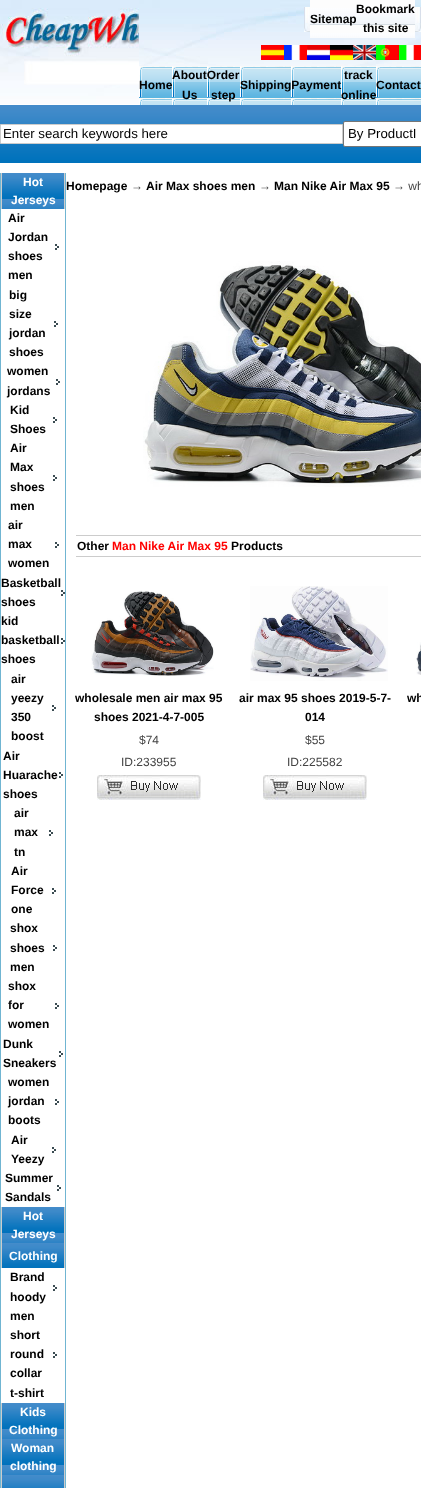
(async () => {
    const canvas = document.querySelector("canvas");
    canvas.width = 421;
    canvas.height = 1488;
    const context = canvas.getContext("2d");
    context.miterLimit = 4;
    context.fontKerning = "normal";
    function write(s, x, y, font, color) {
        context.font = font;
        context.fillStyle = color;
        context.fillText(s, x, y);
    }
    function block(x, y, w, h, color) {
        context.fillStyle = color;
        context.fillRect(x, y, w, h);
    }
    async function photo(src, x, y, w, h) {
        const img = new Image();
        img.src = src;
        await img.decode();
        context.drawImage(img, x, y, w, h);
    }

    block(0, 0, 421, 1488, "rgb(255, 255, 255)");
    await photo("media/1.png", 0, 0, 421, 104);
    await photo("media/2.png", 0, 0, 139, 85);
    await photo("media/3.png", 304, 7, 6, 25);
    await photo("media/4.png", 310, 0, 46, 38);
    write("Sitemap", 310, 23, "bold 12px Liberation Sans", "rgb(0, 0, 0)");
    await photo("media/5.png", 356, 0, 59, 38);
    write("Bookmark", 356, 13, "bold 12px Liberation Sans", "rgb(0, 0, 0)");
    write("this site", 363, 32, "bold 12px Liberation Sans", "rgb(0, 0, 0)");
    await photo("media/6.png", 415, 7, 6, 25);
    await photo("media/7.png", 261, 45, 23, 15);
    await photo("media/8.png", 284, 45, 23, 15);
    await photo("media/9.png", 307, 45, 23, 15);
    await photo("media/10.png", 330, 45, 23, 15);
    await photo("media/11.png", 353, 45, 23, 15);
    await photo("media/12.png", 376, 45, 23, 15);
    await photo("media/13.png", 399, 45, 22, 15);
    await photo("media/14.png", 139, 66, 33, 39);
    write("Home", 139, 89, "bold 12px Liberation Sans", "rgb(0, 0, 0)");
    await photo("media/15.png", 172, 66, 35, 39);
    await photo("media/14.png", 207, 66, 33, 39);
    write("AboutOrder", 172, 79, "bold 12px Liberation Sans", "rgb(0, 0, 0)");
    write("Us", 182, 99, "bold 12px Liberation Sans", "rgb(0, 0, 0)");
    await photo("media/16.png", 291, 66, 50, 39);
    await photo("media/15.png", 341, 66, 35, 39);
    write("track", 344, 79, "bold 12px Liberation Sans", "rgb(0, 0, 0)");
    write("online", 341, 99, "bold 12px Liberation Sans", "rgb(0, 0, 0)");
    await photo("media/17.png", 240, 66, 51, 39);
    write("ShippingPayment", 240, 89, "bold 12px Liberation Sans", "rgb(0, 0, 0)");
    await photo("media/18.png", 376, 66, 45, 39);
    write("Contact", 376, 89, "bold 12px Liberation Sans", "rgb(0, 0, 0)");
    write("step", 211, 99, "bold 12px Liberation Sans", "rgb(0, 0, 0)");
    await photo("media/19.png", 0, 105, 421, 58);
    context.fillStyle = "rgb(255, 255, 255)";
    context.beginPath();
    context.rect(0.5, 124.5, 342, 19);
    context.fill();
    context.strokeStyle = "rgb(204, 204, 204)";
    context.stroke();
    write("Enter search keywords here", 3, 138, "13.25px Liberation Sans", "rgb(0, 0, 0)");
    context.fillStyle = "rgb(255, 255, 255)";
    context.beginPath();
    context.roundRect(343.5, 121.5, 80, 25, 1.5);
    context.fill();
    context.strokeStyle = "rgb(118, 118, 118)";
    context.stroke();
    write("By ProductI", 348, 138, "13.25px Liberation Sans", "rgb(0, 0, 0)");
    block(65, 173, 1, 1315, "rgb(112, 181, 210)");
    block(0, 173, 1, 1315, "rgb(112, 181, 210)");
    await photo("media/20.png", 2, 173, 62, 36);
    block(64, 173, 1, 36, "rgb(204, 204, 204)");
    block(1, 173, 1, 36, "rgb(204, 204, 204)");
    write("Hot", 23, 186, "bold 12px Liberation Sans", "rgb(255, 255, 255)");
    write("Jerseys", 11, 204, "bold 12px Liberation Sans", "rgb(255, 255, 255)");
    write("Air", 8, 222, "bold 12px Liberation Sans", "rgb(0, 0, 0)");
    write("Jordan", 8, 241, "bold 12px Liberation Sans", "rgb(0, 0, 0)");
    write("shoes", 8, 260, "bold 12px Liberation Sans", "rgb(0, 0, 0)");
    write("men", 8, 279, "bold 12px Liberation Sans", "rgb(0, 0, 0)");
    await photo("media/21.png", 55, 244, 4, 6);
    write("big", 9, 299, "bold 12px Liberation Sans", "rgb(0, 0, 0)");
    write("size", 9, 318, "bold 12px Liberation Sans", "rgb(0, 0, 0)");
    write("jordan", 9, 337, "bold 12px Liberation Sans", "rgb(0, 0, 0)");
    write("shoes", 9, 356, "bold 12px Liberation Sans", "rgb(0, 0, 0)");
    await photo("media/21.png", 54, 321, 4, 6);
    write("women", 7, 375, "bold 12px Liberation Sans", "rgb(0, 0, 0)");
    write("jordans", 7, 395, "bold 12px Liberation Sans", "rgb(0, 0, 0)");
    await photo("media/21.png", 56, 379, 4, 6);
    write("Kid", 10, 414, "bold 12px Liberation Sans", "rgb(0, 0, 0)");
    write("Shoes", 10, 433, "bold 12px Liberation Sans", "rgb(0, 0, 0)");
    await photo("media/21.png", 53, 417, 4, 6);
    write("Air", 10, 452, "bold 12px Liberation Sans", "rgb(0, 0, 0)");
    write("Max", 10, 471, "bold 12px Liberation Sans", "rgb(0, 0, 0)");
    write("shoes", 10, 491, "bold 12px Liberation Sans", "rgb(0, 0, 0)");
    write("men", 10, 510, "bold 12px Liberation Sans", "rgb(0, 0, 0)");
    await photo("media/21.png", 53, 475, 4, 6);
    write("air", 8, 529, "bold 12px Liberation Sans", "rgb(0, 0, 0)");
    write("max", 8, 548, "bold 12px Liberation Sans", "rgb(0, 0, 0)");
    write("women", 8, 567, "bold 12px Liberation Sans", "rgb(0, 0, 0)");
    await photo("media/21.png", 55, 542, 4, 6);
    write("Basketball", 1, 587, "bold 12px Liberation Sans", "rgb(0, 0, 0)");
    write("shoes", 1, 606, "bold 12px Liberation Sans", "rgb(0, 0, 0)");
    await photo("media/21.png", 61, 590, 4, 6);
    write("kid", 1, 625, "bold 12px Liberation Sans", "rgb(0, 0, 0)");
    write("basketball", 1, 644, "bold 12px Liberation Sans", "rgb(0, 0, 0)");
    write("shoes", 1, 663, "bold 12px Liberation Sans", "rgb(0, 0, 0)");
    await photo("media/21.png", 61, 638, 4, 6);
    write("air", 11, 683, "bold 12px Liberation Sans", "rgb(0, 0, 0)");
    write("yeezy", 11, 702, "bold 12px Liberation Sans", "rgb(0, 0, 0)");
    write("350", 11, 721, "bold 12px Liberation Sans", "rgb(0, 0, 0)");
    write("boost", 11, 740, "bold 12px Liberation Sans", "rgb(0, 0, 0)");
    await photo("media/21.png", 52, 705, 4, 6);
    write("Air", 3, 760, "bold 12px Liberation Sans", "rgb(0, 0, 0)");
    write("Huarache", 3, 779, "bold 12px Liberation Sans", "rgb(0, 0, 0)");
    write("shoes", 3, 798, "bold 12px Liberation Sans", "rgb(0, 0, 0)");
    await photo("media/21.png", 59, 772, 4, 6);
    write("air", 14, 817, "bold 12px Liberation Sans", "rgb(0, 0, 0)");
    write("max", 14, 836, "bold 12px Liberation Sans", "rgb(0, 0, 0)");
    write("tn", 14, 856, "bold 12px Liberation Sans", "rgb(0, 0, 0)");
    await photo("media/21.png", 49, 830, 4, 6);
    write("Air", 11, 875, "bold 12px Liberation Sans", "rgb(0, 0, 0)");
    write("Force", 11, 894, "bold 12px Liberation Sans", "rgb(0, 0, 0)");
    write("one", 11, 913, "bold 12px Liberation Sans", "rgb(0, 0, 0)");
    await photo("media/21.png", 52, 888, 4, 6);
    write("shox", 10, 932, "bold 12px Liberation Sans", "rgb(0, 0, 0)");
    write("shoes", 10, 952, "bold 12px Liberation Sans", "rgb(0, 0, 0)");
    write("men", 10, 971, "bold 12px Liberation Sans", "rgb(0, 0, 0)");
    await photo("media/21.png", 53, 945, 4, 6);
    write("shox", 8, 990, "bold 12px Liberation Sans", "rgb(0, 0, 0)");
    write("for", 8, 1009, "bold 12px Liberation Sans", "rgb(0, 0, 0)");
    write("women", 8, 1028, "bold 12px Liberation Sans", "rgb(0, 0, 0)");
    await photo("media/21.png", 55, 1003, 4, 6);
    write("Dunk", 3, 1048, "bold 12px Liberation Sans", "rgb(0, 0, 0)");
    write("Sneakers", 3, 1067, "bold 12px Liberation Sans", "rgb(0, 0, 0)");
    await photo("media/21.png", 59, 1051, 4, 6);
    write("women", 8, 1086, "bold 12px Liberation Sans", "rgb(0, 0, 0)");
    write("jordan", 8, 1105, "bold 12px Liberation Sans", "rgb(0, 0, 0)");
    write("boots", 8, 1124, "bold 12px Liberation Sans", "rgb(0, 0, 0)");
    await photo("media/21.png", 55, 1099, 4, 6);
    write("Air", 11, 1144, "bold 12px Liberation Sans", "rgb(0, 0, 0)");
    write("Yeezy", 11, 1163, "bold 12px Liberation Sans", "rgb(0, 0, 0)");
    await photo("media/21.png", 52, 1147, 4, 6);
    write("Summer", 5, 1182, "bold 12px Liberation Sans", "rgb(0, 0, 0)");
    write("Sandals", 5, 1201, "bold 12px Liberation Sans", "rgb(0, 0, 0)");
    await photo("media/21.png", 57, 1185, 4, 6);
    await photo("media/20.png", 2, 1207, 62, 36);
    block(64, 1207, 1, 61, "rgb(204, 204, 204)");
    block(1, 1207, 1, 61, "rgb(204, 204, 204)");
    write("Hot", 23, 1220, "bold 12px Liberation Sans", "rgb(255, 255, 255)");
    write("Jerseys", 11, 1238, "bold 12px Liberation Sans", "rgb(255, 255, 255)");
    await photo("media/22.png", 2, 1243, 62, 25);
    write("Clothing", 9, 1260, "bold 12px Liberation Sans", "rgb(255, 255, 255)");
    write("Brand", 10, 1281, "bold 12px Liberation Sans", "rgb(0, 0, 0)");
    write("hoody", 10, 1301, "bold 12px Liberation Sans", "rgb(0, 0, 0)");
    await photo("media/21.png", 53, 1285, 4, 6);
    write("men", 10, 1320, "bold 12px Liberation Sans", "rgb(0, 0, 0)");
    write("short", 10, 1339, "bold 12px Liberation Sans", "rgb(0, 0, 0)");
    write("round", 10, 1358, "bold 12px Liberation Sans", "rgb(0, 0, 0)");
    write("collar", 10, 1377, "bold 12px Liberation Sans", "rgb(0, 0, 0)");
    write("t-shirt", 10, 1397, "bold 12px Liberation Sans", "rgb(0, 0, 0)");
    await photo("media/21.png", 53, 1352, 4, 6);
    await photo("media/20.png", 2, 1403, 62, 36);
    block(64, 1403, 1, 85, "rgb(204, 204, 204)");
    block(1, 1403, 1, 85, "rgb(204, 204, 204)");
    write("Kids", 20, 1416, "bold 12px Liberation Sans", "rgb(255, 255, 255)");
    write("Clothing", 9, 1434, "bold 12px Liberation Sans", "rgb(255, 255, 255)");
    await photo("media/20.png", 2, 1439, 62, 36);
    write("Woman", 11, 1452, "bold 12px Liberation Sans", "rgb(255, 255, 255)");
    write("clothing", 10, 1470, "bold 12px Liberation Sans", "rgb(255, 255, 255)");
    await photo("media/23.png", 2, 1475, 62, 13);
    write("Homepage", 66, 190, "bold 12px Liberation Sans", "rgb(0, 0, 0)");
    write("→", 131, 190, "12px Liberation Sans", "rgb(68, 68, 68)");
    write("Air Max shoes men", 146, 190, "bold 12px Liberation Sans", "rgb(0, 0, 0)");
    write("→", 259, 190, "12px Liberation Sans", "rgb(68, 68, 68)");
    write("Man Nike Air Max 95", 274, 190, "bold 12px Liberation Sans", "rgb(0, 0, 0)");
    write("→ wh", 393, 190, "12px Liberation Sans", "rgb(68, 68, 68)");
    await photo("media/24.png", 143, 261, 278, 226);
    block(76, 535, 345, 1, "rgb(204, 204, 204)");
    block(76, 556, 345, 1, "rgb(204, 204, 204)");
    write("Other", 77, 550, "bold 12px Liberation Sans", "rgb(0, 0, 0)");
    write("Man Nike Air Max 95", 112, 550, "bold 12px Liberation Sans", "rgb(255, 0, 0)");
    write("Products", 231, 550, "bold 12px Liberation Sans", "rgb(0, 0, 0)");
    await photo("media/25.png", 91, 590, 123, 86);
    write("wholesale men air max 95", 75, 702, "bold 12px Liberation Sans", "rgb(0, 0, 0)");
    write("shoes 2021-4-7-005", 94, 721, "bold 12px Liberation Sans", "rgb(0, 0, 0)");
    write("$74", 139, 744, "12px Liberation Sans", "rgb(68, 68, 68)");
    write("ID:233955", 121, 766, "12px Liberation Sans", "rgb(68, 68, 68)");
    await photo("media/26.png", 97, 775, 104, 25);
    await photo("media/27.png", 250, 586, 138, 95);
    write("air max 95 shoes 2019-5-7-", 239, 702, "bold 12px Liberation Sans", "rgb(0, 0, 0)");
    write("014", 305, 721, "bold 12px Liberation Sans", "rgb(0, 0, 0)");
    write("$55", 305, 744, "12px Liberation Sans", "rgb(68, 68, 68)");
    write("ID:225582", 287, 766, "12px Liberation Sans", "rgb(68, 68, 68)");
    await photo("media/26.png", 263, 775, 104, 25);
    await photo("media/28.png", 416, 642, 5, 33);
    write("wh", 407, 702, "bold 12px Liberation Sans", "rgb(0, 0, 0)");
})();
